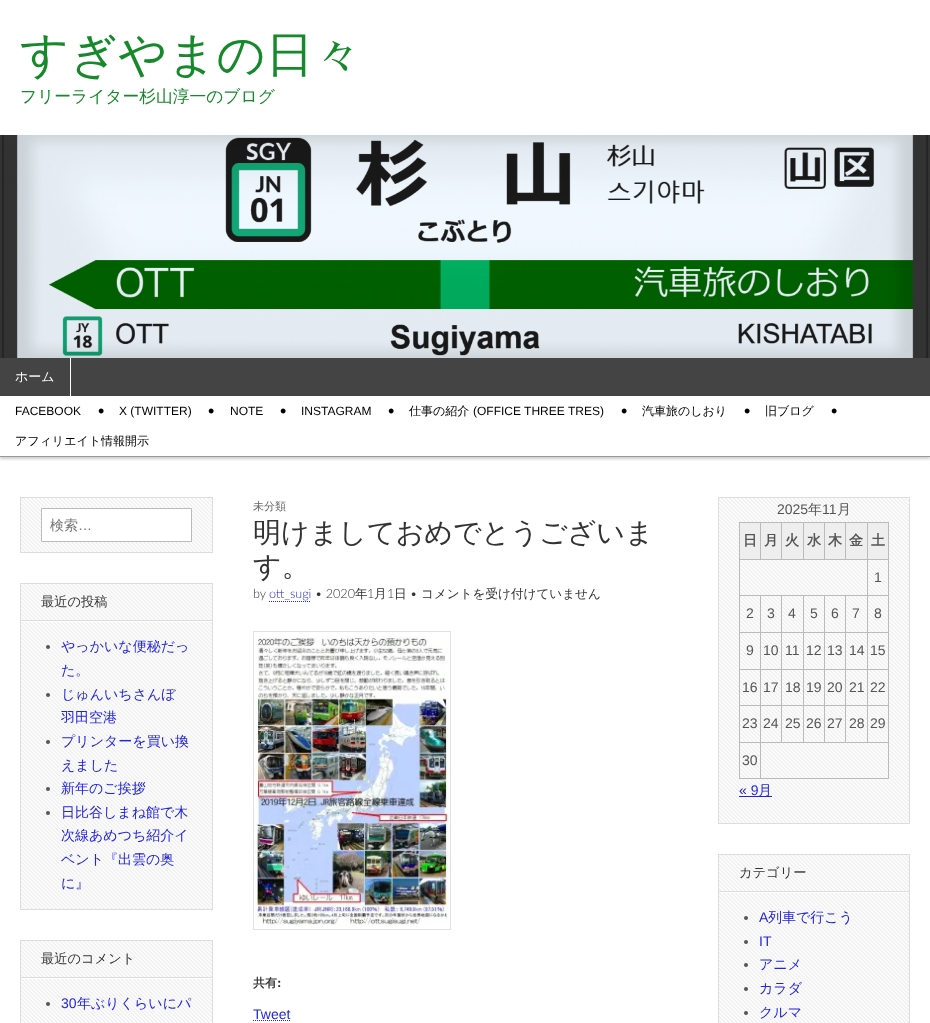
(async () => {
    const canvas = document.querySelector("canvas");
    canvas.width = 930;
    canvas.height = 1023;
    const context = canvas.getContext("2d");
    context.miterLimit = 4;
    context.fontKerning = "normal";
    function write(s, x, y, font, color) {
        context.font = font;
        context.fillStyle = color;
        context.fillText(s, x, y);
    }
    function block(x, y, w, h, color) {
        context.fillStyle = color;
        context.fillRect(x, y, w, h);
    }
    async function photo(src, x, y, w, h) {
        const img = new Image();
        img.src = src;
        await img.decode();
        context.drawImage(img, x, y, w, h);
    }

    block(0, 0, 930, 1023, "rgb(255, 255, 255)");
    write("すぎやまの日々", 20, 71, "500 48px WenQuanYi Zen Hei", "rgb(22, 137, 43)");
    write("フリーライター杉山淳一のブログ", 20, 102, "500 16.75px WenQuanYi Zen Hei", "rgb(22, 137, 43)");
    await photo("media/1.png", 0, 135, 930, 223);
    block(0, 358, 930, 38, "rgb(68, 68, 68)");
    context.save();
    context.beginPath();
    context.rect(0, 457, 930, 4);
    context.clip();
    context.fillStyle = "rgba(0, 0, 0, 0.2)";
    context.filter = "blur(1.5px)";
    context.beginPath();
    context.rect(0, 398, 930, 61);
    context.fill();
    context.filter = "none";
    context.restore();
    block(70, 358, 1, 38, "rgb(255, 255, 255)");
    write("ホーム", 15, 381, "500 13px WenQuanYi Zen Hei", "rgb(255, 255, 255)");
    block(0, 456, 930, 1, "rgb(153, 153, 153)");
    write("FACEBOOK", 15, 415, "12px Liberation Sans", "rgb(0, 0, 0)");
    write("•", 98, 417, "18px Liberation Sans", "rgb(0, 0, 0)");
    write("X (TWITTER)", 119, 415, "12px Liberation Sans", "rgb(0, 0, 0)");
    write("•", 208, 417, "18px Liberation Sans", "rgb(0, 0, 0)");
    write("NOTE", 230, 415, "12px Liberation Sans", "rgb(0, 0, 0)");
    write("•", 280, 417, "18px Liberation Sans", "rgb(0, 0, 0)");
    write("INSTAGRAM", 301, 415, "12px Liberation Sans", "rgb(0, 0, 0)");
    write("•", 388, 417, "18px Liberation Sans", "rgb(0, 0, 0)");
    write("仕事の紹介", 409, 415, "500 12px WenQuanYi Zen Hei", "rgb(0, 0, 0)");
    write("(OFFICE THREE TRES)", 473, 415, "12px Liberation Sans", "rgb(0, 0, 0)");
    write("•", 621, 417, "18px Liberation Sans", "rgb(0, 0, 0)");
    write("汽車旅のしおり", 642, 415, "500 12px WenQuanYi Zen Hei", "rgb(0, 0, 0)");
    write("•", 744, 417, "18px Liberation Sans", "rgb(0, 0, 0)");
    write("旧ブログ", 765, 415, "500 12px WenQuanYi Zen Hei", "rgb(0, 0, 0)");
    write("•", 831, 417, "18px Liberation Sans", "rgb(0, 0, 0)");
    write("アフィリエイト情報開示", 15, 445, "500 12px WenQuanYi Zen Hei", "rgb(0, 0, 0)");
    await photo("media/2.png", 21, 498, 191, 54);
    context.strokeStyle = "rgb(221, 221, 221)";
    context.strokeRect(20.5, 497.5, 192, 55);
    context.fillStyle = "rgb(255, 255, 255)";
    context.beginPath();
    context.rect(41.5, 508.5, 150, 33);
    context.fill();
    context.strokeStyle = "rgb(187, 187, 187)";
    context.stroke();
    write("検索", 50, 530, "500 14px WenQuanYi Zen Hei", "rgb(117, 117, 117)");
    write("…", 78, 530, "14px Liberation Sans", "rgb(117, 117, 117)");
    await photo("media/3.png", 21, 584, 191, 325);
    context.strokeStyle = "rgb(221, 221, 221)";
    context.strokeRect(20.5, 583.5, 192, 326);
    block(21, 621, 191, 1, "rgb(255, 255, 255)");
    block(21, 620, 191, 1, "rgb(221, 221, 221)");
    write("最近の投稿", 41, 606, "500 13.25px WenQuanYi Zen Hei", "rgb(51, 51, 51)");
    context.fillStyle = "rgb(85, 85, 85)";
    context.beginPath();
    context.arc(48, 647, 2, 0, Math.PI * 2);
    context.fill();
    write("やっかいな便秘だっ", 61, 651, "500 14px WenQuanYi Zen Hei", "rgb(34, 37, 216)");
    write("た。", 61, 675, "500 14px WenQuanYi Zen Hei", "rgb(34, 37, 216)");
    context.fillStyle = "rgb(85, 85, 85)";
    context.beginPath();
    context.arc(48, 695, 2, 0, Math.PI * 2);
    context.fill();
    write("じゅんいちさんぼ", 61, 699, "500 14px WenQuanYi Zen Hei", "rgb(34, 37, 216)");
    write("羽田空港", 61, 722, "500 14px WenQuanYi Zen Hei", "rgb(34, 37, 216)");
    context.fillStyle = "rgb(85, 85, 85)";
    context.beginPath();
    context.arc(48, 742, 2, 0, Math.PI * 2);
    context.fill();
    write("プリンターを買い換", 61, 746, "500 14px WenQuanYi Zen Hei", "rgb(34, 37, 216)");
    write("えました", 61, 770, "500 14px WenQuanYi Zen Hei", "rgb(34, 37, 216)");
    context.fillStyle = "rgb(85, 85, 85)";
    context.beginPath();
    context.arc(48, 789, 2, 0, Math.PI * 2);
    context.fill();
    write("新年のご挨拶", 61, 793, "500 14px WenQuanYi Zen Hei", "rgb(34, 37, 216)");
    context.fillStyle = "rgb(85, 85, 85)";
    context.beginPath();
    context.arc(48, 813, 2, 0, Math.PI * 2);
    context.fill();
    write("日比谷しまね館で木", 61, 817, "500 14px WenQuanYi Zen Hei", "rgb(34, 37, 216)");
    write("次線あめつち紹介イ", 61, 840, "500 14px WenQuanYi Zen Hei", "rgb(34, 37, 216)");
    write("ベント『出雲の奥", 61, 864, "500 14px WenQuanYi Zen Hei", "rgb(34, 37, 216)");
    write("に』", 61, 888, "500 14px WenQuanYi Zen Hei", "rgb(34, 37, 216)");
    await photo("media/4.png", 21, 941, 191, 82);
    context.strokeRect(20.5, 940.5, 192, 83);
    block(21, 978, 191, 1, "rgb(255, 255, 255)");
    block(21, 977, 191, 1, "rgb(221, 221, 221)");
    write("最近のコメント", 41, 963, "500 13.25px WenQuanYi Zen Hei", "rgb(51, 51, 51)");
    context.fillStyle = "rgb(85, 85, 85)";
    context.beginPath();
    context.arc(48, 1004, 2, 0, Math.PI * 2);
    context.fill();
    write("30", 61, 1008, "14px Liberation Sans", "rgb(34, 37, 216)");
    write("年ぶりくらいにパ", 77, 1008, "500 14px WenQuanYi Zen Hei", "rgb(34, 37, 216)");
    write("未分類", 253, 510, "500 11px WenQuanYi Zen Hei", "rgb(102, 102, 102)");
    write("明けましておめでとうございま", 253, 542, "500 28px WenQuanYi Zen Hei", "rgb(51, 51, 51)");
    write("す。", 253, 576, "500 28px WenQuanYi Zen Hei", "rgb(51, 51, 51)");
    write("by", 253, 598, "300 12.6px Lato", "rgb(51, 51, 51)");
    write("ott_sugi", 269, 598, "300 12.6px Lato", "rgb(34, 37, 216)");
    context.beginPath();
    context.moveTo(269, 601.5);
    context.lineTo(311, 601.5);
    context.strokeStyle = "rgb(34, 37, 216)";
    context.setLineDash([1, 1]);
    context.stroke();
    write("• 2020", 315, 598, "300 12.6px Lato", "rgb(51, 51, 51)");
    write("年", 355, 598, "500 12.6px WenQuanYi Zen Hei", "rgb(51, 51, 51)");
    write("1", 367, 598, "300 12.6px Lato", "rgb(51, 51, 51)");
    write("月", 374, 598, "500 12.6px WenQuanYi Zen Hei", "rgb(51, 51, 51)");
    write("1", 387, 598, "300 12.6px Lato", "rgb(51, 51, 51)");
    write("日", 394, 598, "500 12.6px WenQuanYi Zen Hei", "rgb(51, 51, 51)");
    write("•", 410, 598, "300 12.6px Lato", "rgb(51, 51, 51)");
    write("コメントを受け付けていません", 421, 598, "500 12.6px WenQuanYi Zen Hei", "rgb(51, 51, 51)");
    context.strokeStyle = "rgb(226, 226, 226)";
    context.setLineDash([]);
    context.strokeRect(253.5, 631.5, 197, 298);
    await photo("media/5.png", 254, 636, 196, 289);
    write("共有", 253, 987, "bold 12px WenQuanYi Zen Hei", "rgb(51, 51, 51)");
    write(":", 277, 987, "bold 12px Cantata One", "rgb(51, 51, 51)");
    context.beginPath();
    context.moveTo(253, 1020.5);
    context.lineTo(290, 1020.5);
    context.strokeStyle = "rgb(34, 37, 216)";
    context.setLineDash([1, 1]);
    context.stroke();
    write("Tweet", 253, 1019, "14px Liberation Sans", "rgb(34, 37, 216)");
    await photo("media/6.png", 719, 498, 190, 325);
    context.strokeStyle = "rgb(221, 221, 221)";
    context.setLineDash([]);
    context.strokeRect(718.5, 497.5, 191, 326);
    write("2025", 777, 514, "14px Liberation Sans", "rgb(85, 85, 85)");
    write("年", 808, 514, "500 14px WenQuanYi Zen Hei", "rgb(85, 85, 85)");
    write("11", 822, 514, "14px Liberation Sans", "rgb(85, 85, 85)");
    write("月", 837, 514, "500 14px WenQuanYi Zen Hei", "rgb(85, 85, 85)");
    block(740, 523, 20, 36, "rgb(238, 238, 238)");
    block(867, 522, 22, 1, "rgb(187, 187, 187)");
    block(867, 559, 22, 1, "rgb(187, 187, 187)");
    block(867, 595, 22, 1, "rgb(187, 187, 187)");
    block(867, 632, 22, 1, "rgb(187, 187, 187)");
    block(867, 669, 22, 1, "rgb(187, 187, 187)");
    block(867, 705, 22, 1, "rgb(187, 187, 187)");
    block(760, 742, 129, 1, "rgb(187, 187, 187)");
    block(867, 705, 1, 38, "rgb(187, 187, 187)");
    block(845, 705, 23, 1, "rgb(187, 187, 187)");
    block(867, 669, 1, 37, "rgb(187, 187, 187)");
    block(845, 669, 23, 1, "rgb(187, 187, 187)");
    block(867, 632, 1, 38, "rgb(187, 187, 187)");
    block(845, 632, 23, 1, "rgb(187, 187, 187)");
    block(867, 595, 1, 38, "rgb(187, 187, 187)");
    block(845, 595, 23, 1, "rgb(187, 187, 187)");
    block(867, 559, 1, 37, "rgb(187, 187, 187)");
    block(739, 559, 129, 1, "rgb(187, 187, 187)");
    block(867, 522, 1, 38, "rgb(187, 187, 187)");
    block(845, 522, 23, 1, "rgb(187, 187, 187)");
    block(845, 522, 1, 38, "rgb(187, 187, 187)");
    block(824, 522, 22, 1, "rgb(187, 187, 187)");
    block(824, 522, 1, 38, "rgb(187, 187, 187)");
    block(803, 522, 22, 1, "rgb(187, 187, 187)");
    block(803, 522, 1, 38, "rgb(187, 187, 187)");
    block(781, 522, 23, 1, "rgb(187, 187, 187)");
    block(781, 522, 1, 38, "rgb(187, 187, 187)");
    block(760, 522, 22, 1, "rgb(187, 187, 187)");
    block(760, 522, 1, 38, "rgb(187, 187, 187)");
    block(739, 522, 22, 1, "rgb(187, 187, 187)");
    block(845, 705, 1, 38, "rgb(187, 187, 187)");
    block(824, 705, 22, 1, "rgb(187, 187, 187)");
    block(845, 669, 1, 37, "rgb(187, 187, 187)");
    block(824, 669, 22, 1, "rgb(187, 187, 187)");
    block(845, 632, 1, 38, "rgb(187, 187, 187)");
    block(824, 632, 22, 1, "rgb(187, 187, 187)");
    block(845, 595, 1, 38, "rgb(187, 187, 187)");
    block(824, 595, 22, 1, "rgb(187, 187, 187)");
    block(824, 705, 1, 38, "rgb(187, 187, 187)");
    block(803, 705, 22, 1, "rgb(187, 187, 187)");
    block(824, 669, 1, 37, "rgb(187, 187, 187)");
    block(803, 669, 22, 1, "rgb(187, 187, 187)");
    block(824, 632, 1, 38, "rgb(187, 187, 187)");
    block(803, 632, 22, 1, "rgb(187, 187, 187)");
    block(824, 595, 1, 38, "rgb(187, 187, 187)");
    block(803, 595, 22, 1, "rgb(187, 187, 187)");
    block(803, 705, 1, 38, "rgb(187, 187, 187)");
    block(781, 705, 23, 1, "rgb(187, 187, 187)");
    block(803, 669, 1, 37, "rgb(187, 187, 187)");
    block(781, 669, 23, 1, "rgb(187, 187, 187)");
    block(803, 632, 1, 38, "rgb(187, 187, 187)");
    block(781, 632, 23, 1, "rgb(187, 187, 187)");
    block(803, 595, 1, 38, "rgb(187, 187, 187)");
    block(781, 595, 23, 1, "rgb(187, 187, 187)");
    block(781, 705, 1, 38, "rgb(187, 187, 187)");
    block(760, 705, 22, 1, "rgb(187, 187, 187)");
    block(781, 669, 1, 37, "rgb(187, 187, 187)");
    block(760, 669, 22, 1, "rgb(187, 187, 187)");
    block(781, 632, 1, 38, "rgb(187, 187, 187)");
    block(760, 632, 22, 1, "rgb(187, 187, 187)");
    block(781, 595, 1, 38, "rgb(187, 187, 187)");
    block(760, 595, 22, 1, "rgb(187, 187, 187)");
    block(888, 742, 1, 37, "rgb(187, 187, 187)");
    block(760, 778, 129, 1, "rgb(187, 187, 187)");
    block(760, 742, 1, 37, "rgb(187, 187, 187)");
    block(739, 742, 22, 1, "rgb(187, 187, 187)");
    block(760, 705, 1, 38, "rgb(187, 187, 187)");
    block(739, 705, 22, 1, "rgb(187, 187, 187)");
    block(760, 669, 1, 37, "rgb(187, 187, 187)");
    block(739, 669, 22, 1, "rgb(187, 187, 187)");
    block(760, 632, 1, 38, "rgb(187, 187, 187)");
    block(739, 632, 22, 1, "rgb(187, 187, 187)");
    block(760, 595, 1, 38, "rgb(187, 187, 187)");
    block(739, 595, 22, 1, "rgb(187, 187, 187)");
    block(739, 778, 22, 1, "rgb(187, 187, 187)");
    block(739, 742, 1, 37, "rgb(187, 187, 187)");
    block(739, 705, 1, 38, "rgb(187, 187, 187)");
    block(739, 669, 1, 37, "rgb(187, 187, 187)");
    block(739, 632, 1, 38, "rgb(187, 187, 187)");
    block(739, 595, 1, 38, "rgb(187, 187, 187)");
    block(739, 559, 1, 37, "rgb(187, 187, 187)");
    block(739, 522, 1, 38, "rgb(187, 187, 187)");
    write("日", 743, 545, "bold 14px WenQuanYi Zen Hei", "rgb(85, 85, 85)");
    block(761, 523, 20, 36, "rgb(238, 238, 238)");
    write("月", 764, 545, "bold 14px WenQuanYi Zen Hei", "rgb(85, 85, 85)");
    block(782, 523, 21, 36, "rgb(238, 238, 238)");
    write("火", 785, 545, "bold 14px WenQuanYi Zen Hei", "rgb(85, 85, 85)");
    block(804, 523, 20, 36, "rgb(238, 238, 238)");
    write("水", 807, 545, "bold 14px WenQuanYi Zen Hei", "rgb(85, 85, 85)");
    block(825, 523, 20, 36, "rgb(238, 238, 238)");
    write("木", 828, 545, "bold 14px WenQuanYi Zen Hei", "rgb(85, 85, 85)");
    block(846, 523, 21, 36, "rgb(238, 238, 238)");
    write("金", 849, 545, "bold 14px WenQuanYi Zen Hei", "rgb(85, 85, 85)");
    block(868, 523, 20, 36, "rgb(238, 238, 238)");
    block(888, 705, 1, 38, "rgb(187, 187, 187)");
    block(888, 669, 1, 37, "rgb(187, 187, 187)");
    block(888, 632, 1, 38, "rgb(187, 187, 187)");
    block(888, 595, 1, 38, "rgb(187, 187, 187)");
    block(888, 559, 1, 37, "rgb(187, 187, 187)");
    block(888, 522, 1, 38, "rgb(187, 187, 187)");
    write("土", 871, 545, "bold 14px WenQuanYi Zen Hei", "rgb(85, 85, 85)");
    write("1", 874, 582, "14px Liberation Sans", "rgb(85, 85, 85)");
    write("2", 746, 618, "14px Liberation Sans", "rgb(85, 85, 85)");
    write("3", 767, 618, "14px Liberation Sans", "rgb(85, 85, 85)");
    write("4", 788, 618, "14px Liberation Sans", "rgb(85, 85, 85)");
    write("5", 810, 618, "14px Liberation Sans", "rgb(85, 85, 85)");
    write("6", 831, 618, "14px Liberation Sans", "rgb(85, 85, 85)");
    write("7", 852, 618, "14px Liberation Sans", "rgb(85, 85, 85)");
    write("8", 874, 618, "14px Liberation Sans", "rgb(85, 85, 85)");
    write("9", 746, 655, "14px Liberation Sans", "rgb(85, 85, 85)");
    write("10", 763, 655, "14px Liberation Sans", "rgb(85, 85, 85)");
    write("11", 785, 655, "14px Liberation Sans", "rgb(85, 85, 85)");
    write("12", 806, 655, "14px Liberation Sans", "rgb(85, 85, 85)");
    write("13", 827, 655, "14px Liberation Sans", "rgb(85, 85, 85)");
    write("14", 849, 655, "14px Liberation Sans", "rgb(85, 85, 85)");
    write("15", 870, 655, "14px Liberation Sans", "rgb(85, 85, 85)");
    write("16", 742, 692, "14px Liberation Sans", "rgb(85, 85, 85)");
    write("17", 763, 692, "14px Liberation Sans", "rgb(85, 85, 85)");
    write("18", 785, 692, "14px Liberation Sans", "rgb(85, 85, 85)");
    write("19", 806, 692, "14px Liberation Sans", "rgb(85, 85, 85)");
    write("20", 827, 692, "14px Liberation Sans", "rgb(85, 85, 85)");
    write("21", 849, 692, "14px Liberation Sans", "rgb(85, 85, 85)");
    write("22", 870, 692, "14px Liberation Sans", "rgb(85, 85, 85)");
    write("23", 742, 728, "14px Liberation Sans", "rgb(85, 85, 85)");
    write("24", 763, 728, "14px Liberation Sans", "rgb(85, 85, 85)");
    write("25", 785, 728, "14px Liberation Sans", "rgb(85, 85, 85)");
    write("26", 806, 728, "14px Liberation Sans", "rgb(85, 85, 85)");
    write("27", 827, 728, "14px Liberation Sans", "rgb(85, 85, 85)");
    write("28", 849, 728, "14px Liberation Sans", "rgb(85, 85, 85)");
    write("29", 870, 728, "14px Liberation Sans", "rgb(85, 85, 85)");
    write("30", 742, 765, "14px Liberation Sans", "rgb(85, 85, 85)");
    write("« 9", 739, 795, "14px Liberation Sans", "rgb(34, 37, 216)");
    block(739, 796, 33, 1, "rgb(34, 37, 216)");
    write("月", 758, 795, "500 14px WenQuanYi Zen Hei", "rgb(34, 37, 216)");
    await photo("media/7.png", 719, 855, 190, 168);
    context.strokeRect(718.5, 854.5, 191, 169);
    block(719, 892, 190, 1, "rgb(255, 255, 255)");
    block(719, 891, 190, 1, "rgb(221, 221, 221)");
    write("カテゴリー", 739, 877, "500 13.25px WenQuanYi Zen Hei", "rgb(51, 51, 51)");
    context.fillStyle = "rgb(85, 85, 85)";
    context.beginPath();
    context.arc(746, 918, 2, 0, Math.PI * 2);
    context.fill();
    write("A", 759, 922, "14px Liberation Sans", "rgb(34, 37, 216)");
    write("列車で行こう", 768, 922, "500 14px WenQuanYi Zen Hei", "rgb(34, 37, 216)");
    context.fillStyle = "rgb(85, 85, 85)";
    context.beginPath();
    context.arc(746, 942, 2, 0, Math.PI * 2);
    context.fill();
    write("IT", 759, 946, "14px Liberation Sans", "rgb(34, 37, 216)");
    context.fillStyle = "rgb(85, 85, 85)";
    context.beginPath();
    context.arc(746, 965, 2, 0, Math.PI * 2);
    context.fill();
    write("アニメ", 759, 969, "500 14px WenQuanYi Zen Hei", "rgb(34, 37, 216)");
    context.fillStyle = "rgb(85, 85, 85)";
    context.beginPath();
    context.arc(746, 989, 2, 0, Math.PI * 2);
    context.fill();
    write("カラダ", 759, 993, "500 14px WenQuanYi Zen Hei", "rgb(34, 37, 216)");
    context.fillStyle = "rgb(85, 85, 85)";
    context.beginPath();
    context.arc(746, 1013, 2, 0, Math.PI * 2);
    context.fill();
    write("クルマ", 759, 1017, "500 14px WenQuanYi Zen Hei", "rgb(34, 37, 216)");
})();
